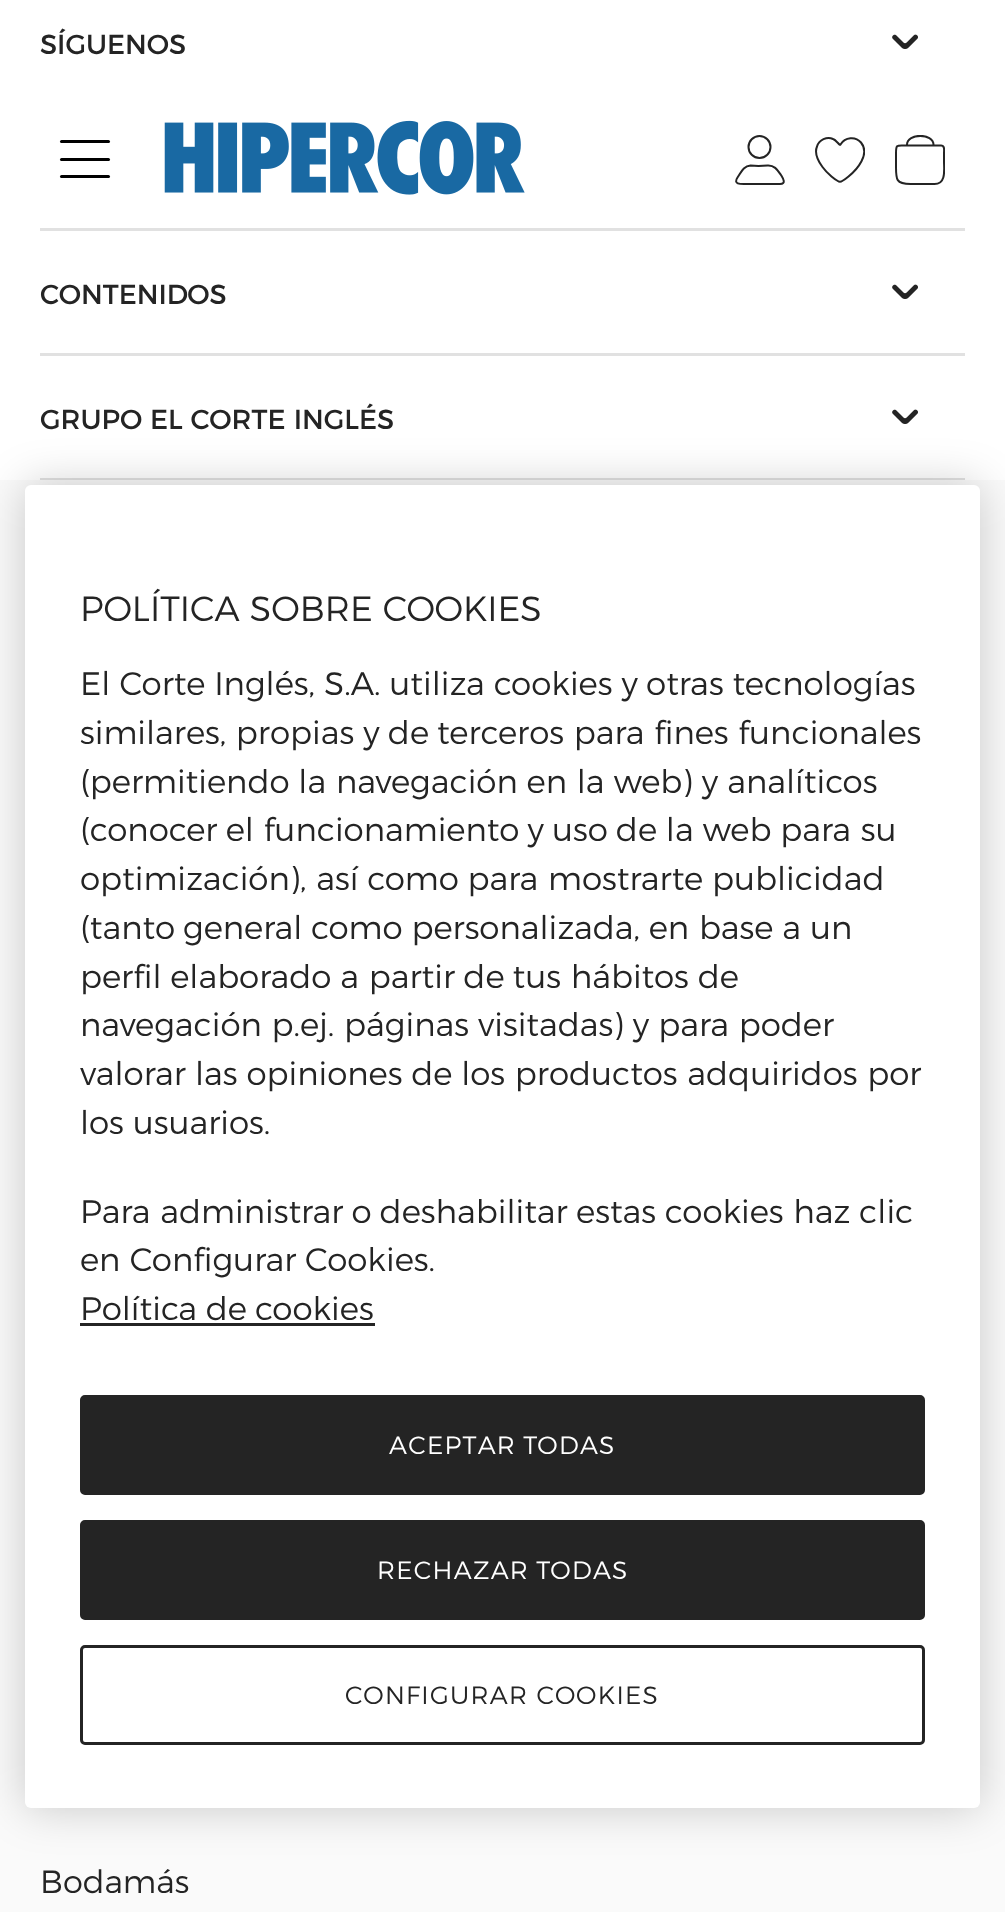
(async () => {
    const canvas = document.querySelector("canvas");
    canvas.width = 1005;
    canvas.height = 1912;
    const context = canvas.getContext("2d");
    context.miterLimit = 4;
    context.fontKerning = "normal";
    function write(s, x, y, font, color) {
        context.font = font;
        context.fillStyle = color;
        context.fillText(s, x, y);
    }
    function block(x, y, w, h, color) {
        context.fillStyle = color;
        context.fillRect(x, y, w, h);
    }
    function card(x, y, w, h, r, color) {
        context.fillStyle = color;
        context.beginPath();
        context.roundRect(x, y, w, h, r);
        context.fill();
    }
    async function photo(src, x, y, w, h) {
        const img = new Image();
        img.src = src;
        await img.decode();
        context.drawImage(img, x, y, w, h);
    }

    block(0, 0, 1005, 1912, "rgb(255, 255, 255)");
    write("SÍGUENOS", 40, 54, "27.5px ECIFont", "rgb(36, 36, 36)");
    await photo("media/1.png", 892, 34, 26, 15);
    block(40, 228, 925, 3, "rgb(225, 225, 225)");
    block(40, 353, 925, 3, "rgb(225, 225, 225)");
    write("CONTENIDOS", 40, 304, "27.5px ECIFont", "rgb(36, 36, 36)");
    await photo("media/1.png", 892, 284, 26, 15);
    block(40, 478, 925, 2, "rgb(225, 225, 225)");
    write("GRUPO EL CORTE INGLÉS", 40, 429, "27.5px ECIFont", "rgb(36, 36, 36)");
    await photo("media/1.png", 892, 409, 26, 15);
    block(0, 480, 1005, 1432, "rgb(250, 250, 250)");
    write("Bodamás", 40, 1893, "300 32px ECIFont", "rgb(36, 36, 36)");
    card(60, 158, 50, 3, 1.5, "rgb(0, 0, 0)");
    card(60, 140, 50, 3, 1.5, "rgb(0, 0, 0)");
    card(60, 175, 50, 3, 1.5, "rgb(0, 0, 0)");
    await photo("media/2.png", 164, 120, 361, 75);
    context.beginPath();
    context.arc(759.5, 147, 11, 0, Math.PI * 2);
    context.strokeStyle = "rgb(36, 36, 36)";
    context.lineWidth = 2;
    context.stroke();
    context.beginPath();
    context.moveTo(767.5, 165.5);
    context.lineTo(758.5, 166);
    context.lineTo(750.5, 165.5);
    context.bezierCurveTo(743.5, 166, 741, 172.5, 737.5, 177.5);
    context.bezierCurveTo(732.5, 185, 742, 184, 746.5, 184);
    context.lineTo(780, 184);
    context.bezierCurveTo(787, 184, 782.5, 177.5, 781, 175);
    context.bezierCurveTo(777.5, 170, 774.5, 165, 767.5, 165.5);
    context.closePath();
    context.lineCap = "round";
    context.lineJoin = "round";
    context.stroke();
    context.save();
    context.beginPath();
    context.rect(815, 135, 50, 50);
    context.clip();
    context.beginPath();
    context.moveTo(840.5, 144.5);
    context.bezierCurveTo(840, 146.5, 836.5, 140, 833, 139);
    context.bezierCurveTo(827, 136, 819, 140, 817, 146.5);
    context.bezierCurveTo(814, 153.5, 818.5, 161.5, 822.5, 167);
    context.bezierCurveTo(825, 170.5, 828, 173.5, 831.5, 176.5);
    context.bezierCurveTo(840, 183.5, 840, 183.5, 848.5, 176.5);
    context.bezierCurveTo(857, 169.5, 870.5, 154, 861, 142.5);
    context.bezierCurveTo(855.5, 136, 845, 137, 840.5, 144.5);
    context.closePath();
    context.lineJoin = "miter";
    context.stroke();
    context.restore();
    context.save();
    context.beginPath();
    context.rect(895, 135, 50, 50);
    context.clip();
    context.beginPath();
    context.moveTo(934.5, 184);
    context.lineTo(910.5, 184);
    context.bezierCurveTo(895.5, 184, 896, 179, 896, 165.5);
    context.lineTo(896, 153);
    context.bezierCurveTo(896, 144, 897, 145.5, 906, 145.5);
    context.lineTo(941, 145.5);
    context.bezierCurveTo(945, 145.5, 944, 150.5, 944, 153);
    context.lineTo(944, 161.5);
    context.bezierCurveTo(944, 169, 946.5, 184, 934.5, 184);
    context.closePath();
    context.moveTo(933.5, 144.5);
    context.bezierCurveTo(933.5, 133, 907, 133, 907, 144.5);
    context.stroke();
    context.restore();
    context.fillStyle = "rgba(0, 0, 0, 0.2)";
    context.filter = "blur(22.5px)";
    context.beginPath();
    context.roundRect(25, 485, 955, 1323, 6);
    context.fill();
    context.filter = "none";
    card(25, 485, 955, 1323, 6, "rgb(255, 255, 255)");
    write("POLÍTICA SOBRE COOKIES", 80, 621, "300 35px 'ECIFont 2'", "rgb(36, 36, 36)");
    write("El Corte Inglés, S.A. utiliza cookies y otras tecnologías", 80, 695, "300 32.5px 'ECIFont 2'", "rgb(36, 36, 36)");
    write("similares, propias y de terceros para fines funcionales", 80, 744, "300 32.5px 'ECIFont 2'", "rgb(36, 36, 36)");
    write("(permitiendo la navegación en la web) y analíticos", 80, 793, "300 32.5px 'ECIFont 2'", "rgb(36, 36, 36)");
    write("(conocer el funcionamiento y uso de la web para su", 80, 841, "300 32.5px 'ECIFont 2'", "rgb(36, 36, 36)");
    write("optimización), así como para mostrarte publicidad", 80, 890, "300 32.5px 'ECIFont 2'", "rgb(36, 36, 36)");
    write("(tanto general como personalizada, en base a un", 80, 939, "300 32.5px 'ECIFont 2'", "rgb(36, 36, 36)");
    write("perfil elaborado a partir de tus hábitos de", 80, 988, "300 32.5px 'ECIFont 2'", "rgb(36, 36, 36)");
    write("navegación p.ej. páginas visitadas) y para poder", 80, 1036, "300 32.5px 'ECIFont 2'", "rgb(36, 36, 36)");
    write("valorar las opiniones de los productos adquiridos por", 80, 1085, "300 32.5px 'ECIFont 2'", "rgb(36, 36, 36)");
    write("los usuarios.", 80, 1134, "300 32.5px 'ECIFont 2'", "rgb(36, 36, 36)");
    write("Para administrar o deshabilitar estas cookies haz clic", 80, 1223, "300 32.5px 'ECIFont 2'", "rgb(36, 36, 36)");
    write("en Configurar Cookies.", 80, 1271, "300 32.5px 'ECIFont 2'", "rgb(36, 36, 36)");
    write("Política de cookies", 80, 1320, "300 32.5px 'ECIFont 2'", "rgb(36, 36, 36)");
    block(80, 1323, 295, 3, "rgb(36, 36, 36)");
    context.beginPath();
    context.roundRect(81.5, 1396.5, 842, 97, 3.5);
    context.fill();
    context.lineWidth = 3;
    context.lineJoin = "miter";
    context.stroke();
    context.letterSpacing = "1.25px";
    write("ACEPTAR TODAS", 389, 1454, "300 25px 'ECIFont 2'", "rgb(255, 255, 255)");
    context.fillStyle = "rgb(36, 36, 36)";
    context.beginPath();
    context.roundRect(81.5, 1521.5, 842, 97, 3.5);
    context.fill();
    context.stroke();
    write("RECHAZAR TODAS", 377, 1579, "300 25px 'ECIFont 2'", "rgb(255, 255, 255)");
    context.beginPath();
    context.roundRect(81.5, 1646.5, 842, 97, 3.5);
    context.stroke();
    write("CONFIGURAR COOKIES", 345, 1704, "300 25px 'ECIFont 2'", "rgb(36, 36, 36)");
})();
